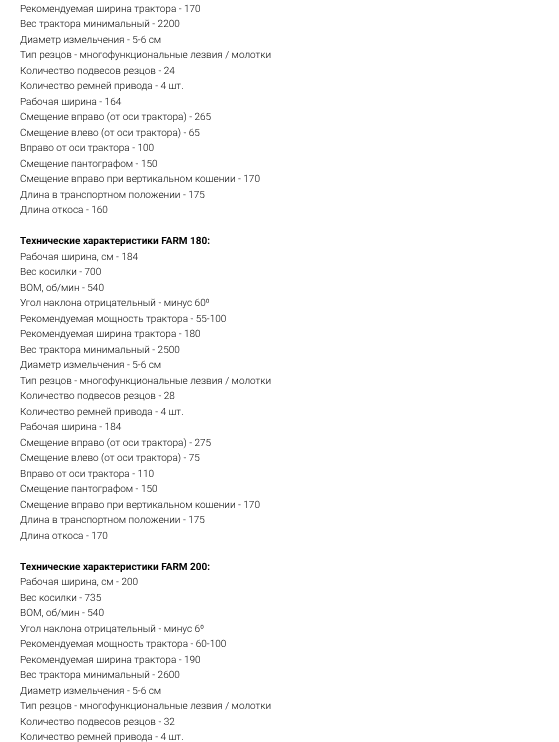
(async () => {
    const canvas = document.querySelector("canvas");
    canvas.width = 559;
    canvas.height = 742;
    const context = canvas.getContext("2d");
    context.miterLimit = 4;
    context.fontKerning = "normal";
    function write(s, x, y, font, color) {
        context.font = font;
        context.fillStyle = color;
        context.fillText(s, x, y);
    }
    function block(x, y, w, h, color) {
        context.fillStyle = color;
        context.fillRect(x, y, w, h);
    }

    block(0, 0, 559, 742, "rgb(255, 255, 255)");
    write("Рекомендуемая ширина трактора - 170", 20, 12, "300 10px Roboto", "rgb(0, 0, 0)");
    write("Вес трактора минимальный - 2200", 20, 27, "300 10px Roboto", "rgb(0, 0, 0)");
    write("Диаметр измельчения - 5-6 см", 20, 43, "300 10px Roboto", "rgb(0, 0, 0)");
    write("Тип резцов - многофункциональные лезвия / молотки", 20, 58, "300 10px Roboto", "rgb(0, 0, 0)");
    write("Количество подвесов резцов - 24", 20, 74, "300 10px Roboto", "rgb(0, 0, 0)");
    write("Количество ремней привода - 4 шт.", 20, 89, "300 10px Roboto", "rgb(0, 0, 0)");
    write("Рабочая ширина - 164", 20, 105, "300 10px Roboto", "rgb(0, 0, 0)");
    write("Смещение вправо (от оси трактора) - 265", 20, 120, "300 10px Roboto", "rgb(0, 0, 0)");
    write("Смещение влево (от оси трактора) - 65", 20, 136, "300 10px Roboto", "rgb(0, 0, 0)");
    write("Вправо от оси трактора - 100", 20, 151, "300 10px Roboto", "rgb(0, 0, 0)");
    write("Смещение пантографом - 150", 20, 167, "300 10px Roboto", "rgb(0, 0, 0)");
    write("Смещение вправо при вертикальном кошении - 170", 20, 182, "300 10px Roboto", "rgb(0, 0, 0)");
    write("Длина в транспортном положении - 175", 20, 198, "300 10px Roboto", "rgb(0, 0, 0)");
    write("Длина откоса - 160", 20, 213, "300 10px Roboto", "rgb(0, 0, 0)");
    write("Технические характеристики FARM 180:", 20, 244, "bold 10px Roboto", "rgb(0, 0, 0)");
    write("Рабочая ширина, см - 184", 20, 260, "300 10px Roboto", "rgb(0, 0, 0)");
    write("Вес косилки - 700", 20, 275, "300 10px Roboto", "rgb(0, 0, 0)");
    write("ВОМ, об/мин - 540", 20, 291, "300 10px Roboto", "rgb(0, 0, 0)");
    write("Угол наклона отрицательный - минус 60⁰", 20, 306, "300 10px Roboto", "rgb(0, 0, 0)");
    write("Рекомендуемая мощность трактора - 55-100", 20, 322, "300 10px Roboto", "rgb(0, 0, 0)");
    write("Рекомендуемая ширина трактора - 180", 20, 337, "300 10px Roboto", "rgb(0, 0, 0)");
    write("Вес трактора минимальный - 2500", 20, 353, "300 10px Roboto", "rgb(0, 0, 0)");
    write("Диаметр измельчения - 5-6 см", 20, 368, "300 10px Roboto", "rgb(0, 0, 0)");
    write("Тип резцов - многофункциональные лезвия / молотки", 20, 384, "300 10px Roboto", "rgb(0, 0, 0)");
    write("Количество подвесов резцов - 28", 20, 399, "300 10px Roboto", "rgb(0, 0, 0)");
    write("Количество ремней привода - 4 шт.", 20, 415, "300 10px Roboto", "rgb(0, 0, 0)");
    write("Рабочая ширина - 184", 20, 430, "300 10px Roboto", "rgb(0, 0, 0)");
    write("Смещение вправо (от оси трактора) - 275", 20, 446, "300 10px Roboto", "rgb(0, 0, 0)");
    write("Смещение влево (от оси трактора) - 75", 20, 461, "300 10px Roboto", "rgb(0, 0, 0)");
    write("Вправо от оси трактора - 110", 20, 477, "300 10px Roboto", "rgb(0, 0, 0)");
    write("Смещение пантографом - 150", 20, 492, "300 10px Roboto", "rgb(0, 0, 0)");
    write("Смещение вправо при вертикальном кошении - 170", 20, 508, "300 10px Roboto", "rgb(0, 0, 0)");
    write("Длина в транспортном положении - 175", 20, 523, "300 10px Roboto", "rgb(0, 0, 0)");
    write("Длина откоса - 170", 20, 539, "300 10px Roboto", "rgb(0, 0, 0)");
    write("Технические характеристики FARM 200:", 20, 570, "bold 10px Roboto", "rgb(0, 0, 0)");
    write("Рабочая ширина, см - 200", 20, 585, "300 10px Roboto", "rgb(0, 0, 0)");
    write("Вес косилки - 735", 20, 601, "300 10px Roboto", "rgb(0, 0, 0)");
    write("ВОМ, об/мин - 540", 20, 616, "300 10px Roboto", "rgb(0, 0, 0)");
    write("Угол наклона отрицательный - минус 6⁰", 20, 632, "300 10px Roboto", "rgb(0, 0, 0)");
    write("Рекомендуемая мощность трактора - 60-100", 20, 647, "300 10px Roboto", "rgb(0, 0, 0)");
    write("Рекомендуемая ширина трактора - 190", 20, 663, "300 10px Roboto", "rgb(0, 0, 0)");
    write("Вес трактора минимальный - 2600", 20, 678, "300 10px Roboto", "rgb(0, 0, 0)");
    write("Диаметр измельчения - 5-6 см", 20, 694, "300 10px Roboto", "rgb(0, 0, 0)");
    write("Тип резцов - многофункциональные лезвия / молотки", 20, 709, "300 10px Roboto", "rgb(0, 0, 0)");
    write("Количество подвесов резцов - 32", 20, 725, "300 10px Roboto", "rgb(0, 0, 0)");
    write("Количество ремней привода - 4 шт.", 20, 740, "300 10px Roboto", "rgb(0, 0, 0)");
})();
